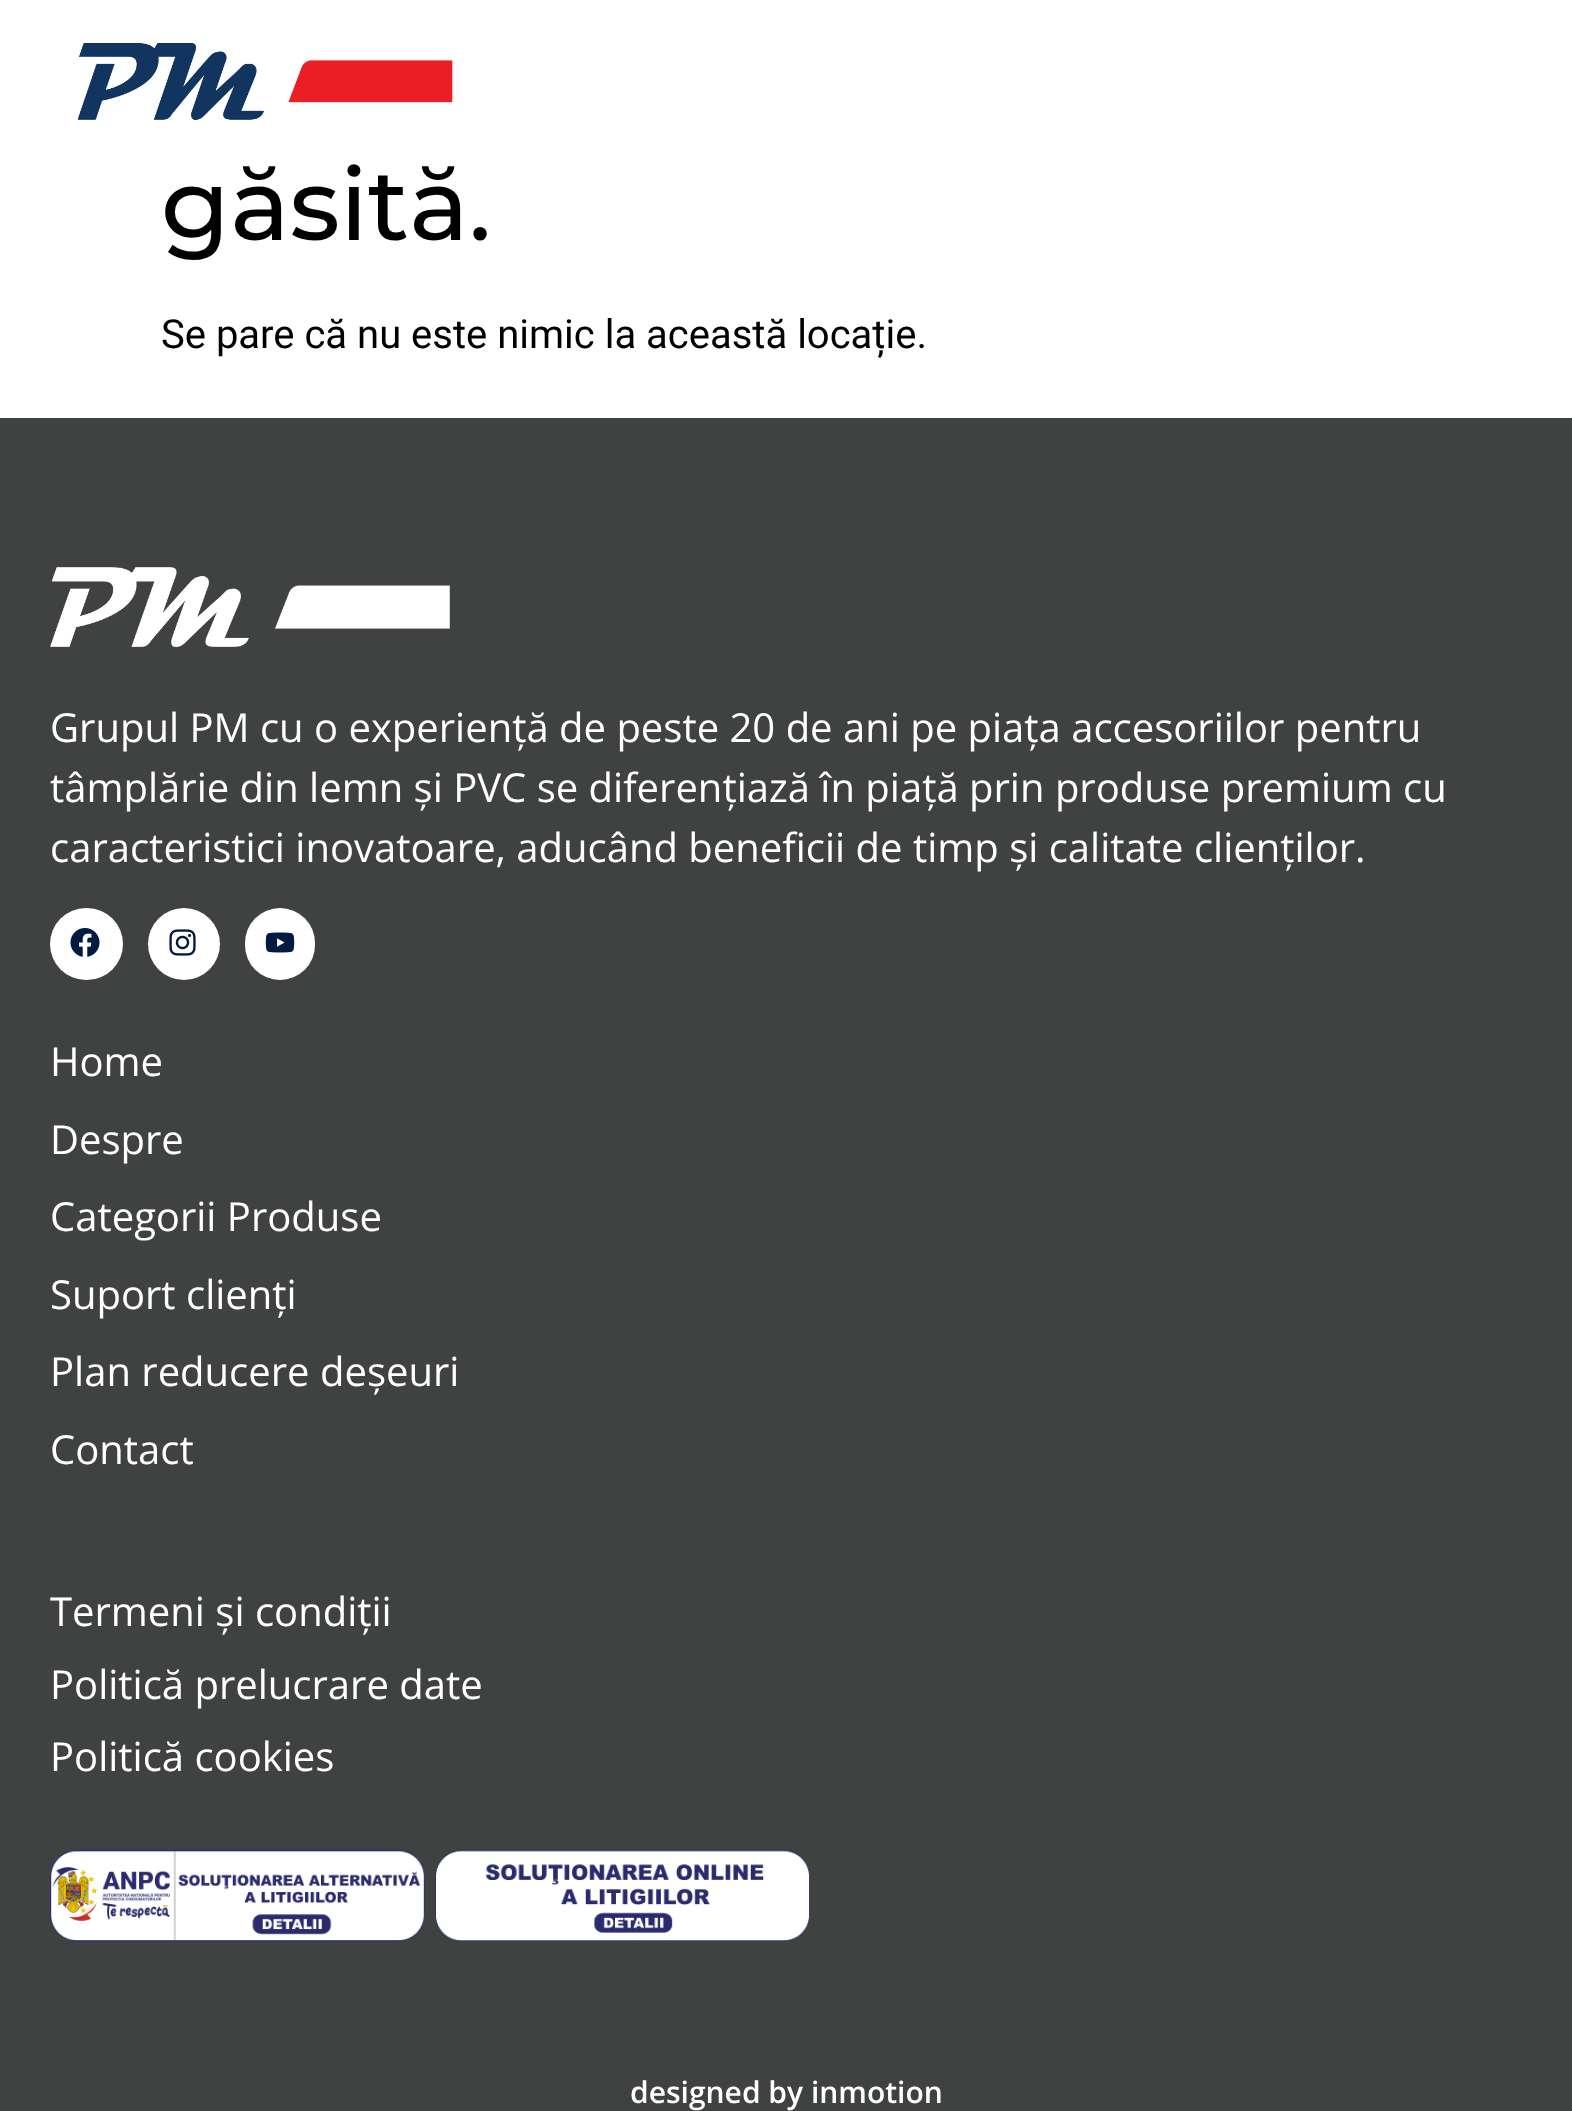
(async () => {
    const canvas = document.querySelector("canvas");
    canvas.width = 1572;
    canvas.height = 2111;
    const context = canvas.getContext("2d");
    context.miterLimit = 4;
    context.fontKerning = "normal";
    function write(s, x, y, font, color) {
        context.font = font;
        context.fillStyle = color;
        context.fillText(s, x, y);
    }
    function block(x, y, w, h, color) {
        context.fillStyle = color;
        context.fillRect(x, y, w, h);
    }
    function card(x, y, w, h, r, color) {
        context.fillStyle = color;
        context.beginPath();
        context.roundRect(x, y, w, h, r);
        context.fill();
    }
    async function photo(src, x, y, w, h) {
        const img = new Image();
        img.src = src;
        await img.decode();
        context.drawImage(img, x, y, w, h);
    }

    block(0, 0, 1572, 2111, "rgb(255, 255, 255)");
    await photo("media/1.png", 78, 43, 375, 77);
    write("găsită.", 161, 240, "500 100px Montserrat", "rgb(0, 0, 0)");
    write("Se pare că nu este nimic la această locație.", 161, 348, "40px Roboto", "rgb(0, 0, 0)");
    block(0, 418, 1572, 1693, "rgb(64, 65, 65)");
    await photo("media/2.png", 50, 567, 400, 80);
    write("Grupul PM cu o experiență de peste 20 de ani pe piața accesoriilor pentru", 50, 742, "40px Open Sans", "rgb(255, 255, 255)");
    write("tâmplărie din lemn și PVC se diferențiază în piață prin produse premium cu", 50, 802, "40px Open Sans", "rgb(255, 255, 255)");
    write("caracteristici inovatoare, aducând beneficii de timp și calitate clienților.", 50, 862, "40px Open Sans", "rgb(255, 255, 255)");
    card(50, 908, 73, 72, 36, "rgb(255, 255, 255)");
    await photo("media/3.png", 70, 928, 30, 29);
    context.beginPath();
    context.arc(184, 944, 36, 0, Math.PI * 2);
    context.fill();
    await photo("media/4.png", 169, 929, 27, 27);
    card(245, 908, 70, 72, 35, "rgb(255, 255, 255)");
    await photo("media/5.png", 265, 932, 30, 21);
    write("Home", 50, 1076, "40px Open Sans", "rgb(255, 255, 255)");
    write("Despre", 50, 1154, "40px Open Sans", "rgb(255, 255, 255)");
    write("Categorii Produse", 50, 1231, "40px Open Sans", "rgb(255, 255, 255)");
    write("Suport clienți", 50, 1309, "40px Open Sans", "rgb(255, 255, 255)");
    write("Plan reducere deșeuri", 50, 1386, "40px Open Sans", "rgb(255, 255, 255)");
    write("Contact", 50, 1464, "40px Open Sans", "rgb(255, 255, 255)");
    write("Termeni și condiții", 50, 1626, "40px Open Sans", "rgb(255, 255, 255)");
    write("Politică prelucrare date", 50, 1699, "40px Open Sans", "rgb(255, 255, 255)");
    write("Politică cookies", 50, 1771, "40px Open Sans", "rgb(255, 255, 255)");
    await photo("media/6.png", 50, 1849, 375, 93);
    await photo("media/7.png", 435, 1849, 375, 93);
    write("designed by inmotion", 630, 2103, "600 30px Open Sans", "rgb(255, 255, 255)");
})();
